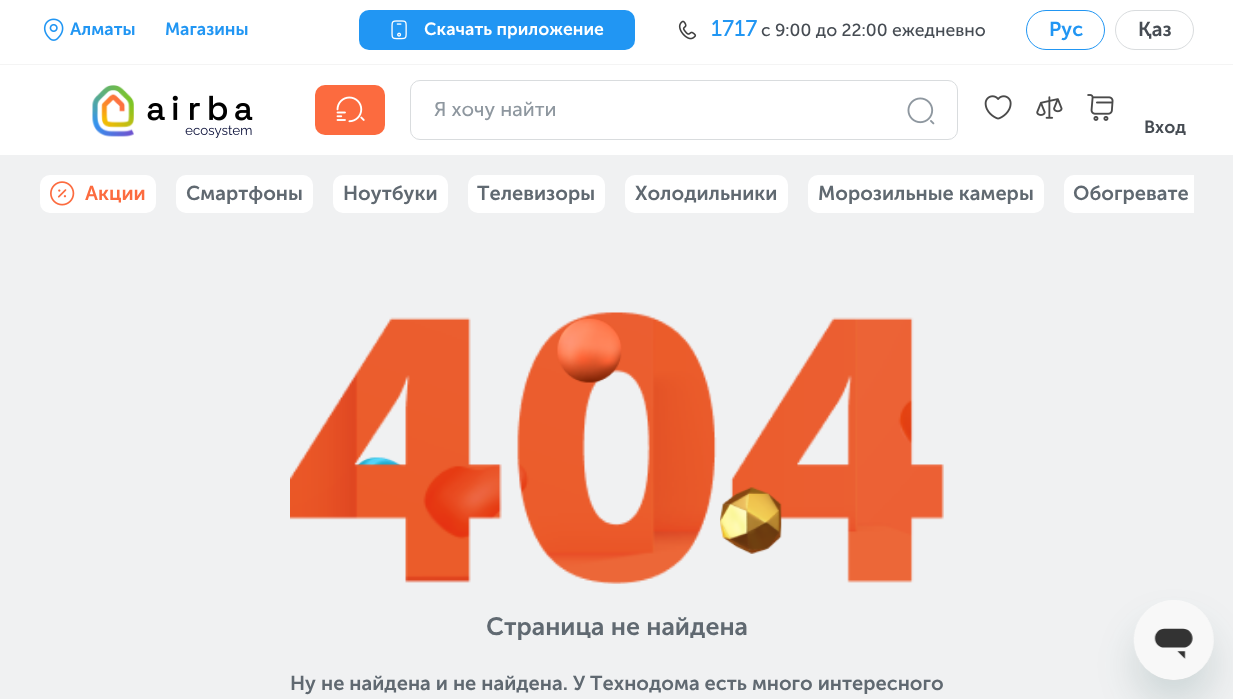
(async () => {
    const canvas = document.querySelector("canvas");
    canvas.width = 1233;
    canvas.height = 699;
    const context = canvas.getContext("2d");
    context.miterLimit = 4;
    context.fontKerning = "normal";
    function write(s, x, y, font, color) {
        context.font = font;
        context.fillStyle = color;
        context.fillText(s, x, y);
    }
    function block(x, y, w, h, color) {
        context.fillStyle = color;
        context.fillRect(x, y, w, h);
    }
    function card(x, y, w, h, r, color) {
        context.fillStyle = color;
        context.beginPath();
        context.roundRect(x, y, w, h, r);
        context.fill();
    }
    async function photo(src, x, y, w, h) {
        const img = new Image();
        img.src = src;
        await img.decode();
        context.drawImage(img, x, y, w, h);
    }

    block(0, 0, 1233, 699, "rgb(240, 241, 242)");
    block(0, 0, 1233, 64, "rgb(255, 255, 255)");
    block(0, 64, 1233, 1, "rgb(244, 244, 244)");
    await photo("media/1.png", 43, 18, 21, 23);
    write("Алматы", 70, 35, "bold 17.5px 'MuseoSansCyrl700'", "rgb(33, 150, 243)");
    write("Магазины", 165, 35, "bold 17.5px 'MuseoSansCyrl700'", "rgb(33, 150, 243)");
    card(359, 10, 276, 40, 10, "rgb(33, 150, 243)");
    await photo("media/2.png", 391, 20, 16, 20);
    write("Скачать приложение", 424, 35, "bold 17.5px 'MuseoSansCyrl700'", "rgb(255, 255, 255)");
    await photo("media/3.png", 678, 20, 19, 20);
    write("1717", 711, 36, "22.5px 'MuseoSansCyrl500'", "rgb(33, 150, 243)");
    write("с 9:00 до 22:00 ежедневно", 761, 36, "17.5px 'MuseoSansCyrl500'", "rgb(70, 76, 83)");
    context.beginPath();
    context.roundRect(1026.5, 10.5, 78, 39, 19.5);
    context.strokeStyle = "rgb(33, 150, 243)";
    context.stroke();
    write("Рус", 1049, 36, "bold 20px 'MuseoSansCyrl700'", "rgb(33, 150, 243)");
    context.beginPath();
    context.roundRect(1115.5, 10.5, 78, 39, 19.5);
    context.strokeStyle = "rgb(217, 220, 222)";
    context.stroke();
    write("Қаз", 1138, 36, "bold 20px 'MuseoSansCyrl700'", "rgb(70, 76, 83)");
    block(0, 65, 1233, 90, "rgb(255, 255, 255)");
    await photo("media/4.png", 92, 85, 42, 52);
    await photo("media/5.png", 147, 103, 18, 18);
    await photo("media/6.png", 172, 95, 6, 25);
    await photo("media/7.png", 190, 103, 10, 17);
    await photo("media/8.png", 209, 95, 18, 26);
    await photo("media/9.png", 235, 103, 18, 18);
    await photo("media/10.png", 185, 125, 67, 13);
    card(315, 85, 70, 50, 10, "rgb(252, 107, 63)");
    await photo("media/11.png", 336, 96, 29, 27);
    context.beginPath();
    context.roundRect(410.5, 80.5, 547, 59, 9.5);
    context.stroke();
    write("Я хочу найти", 434, 116, "20px 'MuseoSansCyrl500'", "rgb(142, 151, 159)");
    await photo("media/12.png", 907, 97, 28, 28);
    await photo("media/13.png", 984, 95, 28, 25);
    await photo("media/14.png", 1036, 96, 27, 23);
    await photo("media/15.png", 1087, 94, 27, 27);
    write("Вход", 1144, 133, "bold 17.5px 'MuseoSansCyrl700'", "rgb(70, 76, 83)");
    card(40, 175, 116, 38, 10, "rgb(255, 255, 255)");
    await photo("media/16.png", 50, 181, 25, 25);
    write("Акции", 85, 200, "bold 20px 'MuseoSansCyrl700'", "rgb(252, 107, 63)");
    card(176, 175, 137, 38, 10, "rgb(255, 255, 255)");
    write("Смартфоны", 186, 200, "bold 20px 'MuseoSansCyrl700'", "rgb(96, 105, 113)");
    card(333, 175, 115, 38, 10, "rgb(255, 255, 255)");
    write("Ноутбуки", 343, 200, "bold 20px 'MuseoSansCyrl700'", "rgb(96, 105, 113)");
    card(468, 175, 137, 38, 10, "rgb(255, 255, 255)");
    write("Телевизоры", 477, 200, "bold 20px 'MuseoSansCyrl700'", "rgb(96, 105, 113)");
    card(625, 175, 163, 38, 10, "rgb(255, 255, 255)");
    write("Холодильники", 635, 200, "bold 20px 'MuseoSansCyrl700'", "rgb(96, 105, 113)");
    card(808, 175, 236, 38, 10, "rgb(255, 255, 255)");
    write("Морозильные камеры", 818, 200, "bold 20px 'MuseoSansCyrl700'", "rgb(96, 105, 113)");
    context.fillStyle = "rgb(255, 255, 255)";
    context.beginPath();
    context.roundRect(1064, 175, 130, 38, [10, 0, 0, 10]);
    context.fill();
    write("Обогревате", 1073, 200, "bold 20px 'MuseoSansCyrl700'", "rgb(96, 105, 113)");
    await photo("media/19.png", 355, 457, 49, 10);
    await photo("media/17.png", 290, 312, 654, 272);
    await photo("media/18.png", 557, 318, 65, 65);
    await photo("media/20.png", 720, 487, 62, 67);
    write("Страница не найдена", 486, 635, "bold 25px 'MuseoSansCyrl700'", "rgb(96, 105, 113)");
    write("Ну не найдена и не найдена. У Технодома есть много интересного", 290, 690, "bold 20px 'MuseoSansCyrl700'", "rgb(96, 105, 113)");
    context.fillStyle = "rgba(23, 73, 77, 0.15)";
    context.filter = "blur(19px)";
    context.beginPath();
    context.roundRect(1134, 625, 80, 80, 40);
    context.fill();
    context.filter = "none";
    await photo("media/21.png", 1133, 600, 81, 80);
})();
